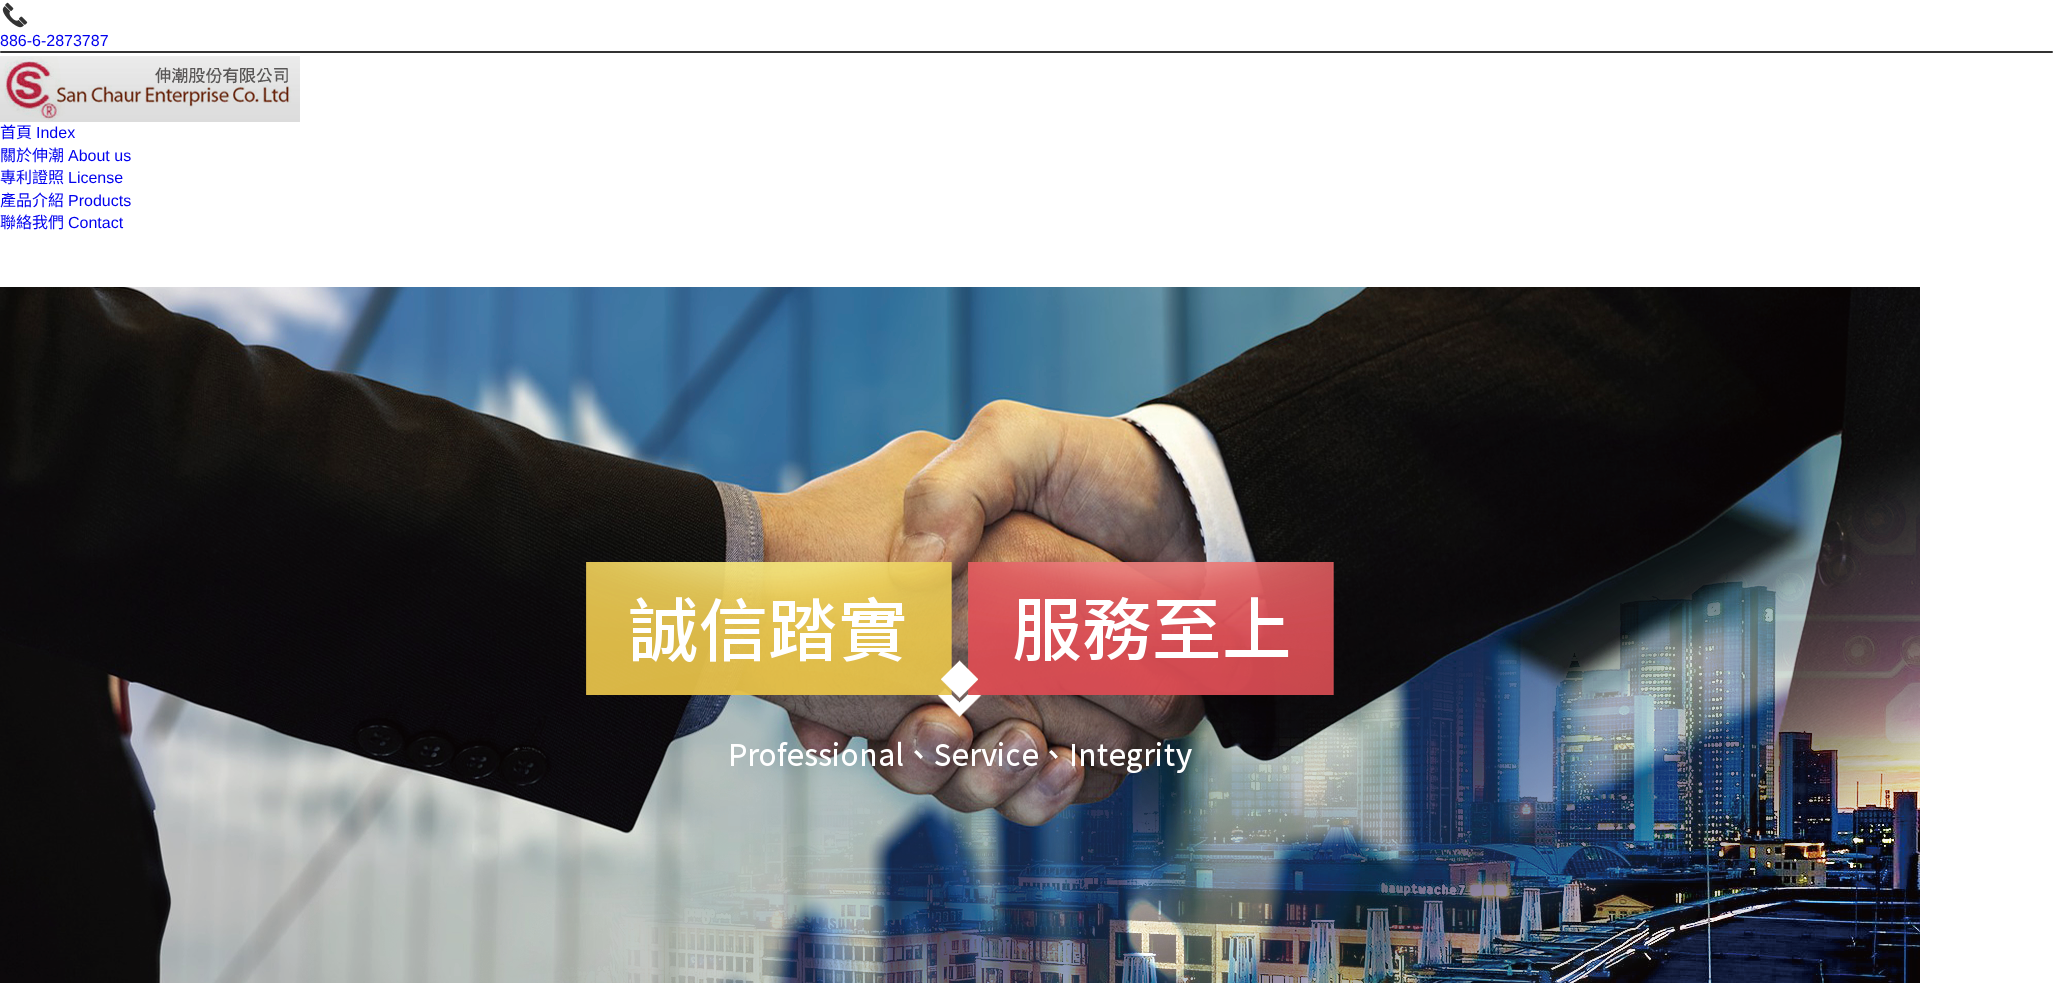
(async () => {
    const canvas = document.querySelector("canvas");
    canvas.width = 2053;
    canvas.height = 983;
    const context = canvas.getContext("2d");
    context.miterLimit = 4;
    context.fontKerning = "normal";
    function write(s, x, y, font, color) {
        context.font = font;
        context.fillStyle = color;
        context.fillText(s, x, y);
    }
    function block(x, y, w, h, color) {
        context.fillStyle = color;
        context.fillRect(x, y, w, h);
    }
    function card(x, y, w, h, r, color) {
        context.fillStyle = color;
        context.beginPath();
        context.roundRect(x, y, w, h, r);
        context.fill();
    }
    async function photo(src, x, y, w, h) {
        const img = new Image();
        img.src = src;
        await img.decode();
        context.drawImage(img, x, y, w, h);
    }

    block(0, 0, 2053, 983, "rgb(255, 255, 255)");
    await photo("media/1.png", 2, 2, 26, 26);
    write("886-6-2873787", 0, 46, "16px Liberation Sans", "rgb(0, 0, 238)");
    card(0, 51, 2053, 2, 1, "rgb(51, 51, 51)");
    await photo("media/2.png", 0, 56, 300, 66);
    write("首頁", 0, 138, "16px Noto Sans CJK TC", "rgb(0, 0, 238)");
    write("Index", 36, 138, "16px Liberation Sans", "rgb(0, 0, 238)");
    write("關於伸潮", 0, 161, "16px Noto Sans CJK TC", "rgb(0, 0, 238)");
    write("About us", 68, 161, "16px Liberation Sans", "rgb(0, 0, 238)");
    write("專利證照", 0, 183, "16px Noto Sans CJK TC", "rgb(0, 0, 238)");
    write("License", 68, 183, "16px Liberation Sans", "rgb(0, 0, 238)");
    write("產品介紹", 0, 206, "16px Noto Sans CJK TC", "rgb(0, 0, 238)");
    write("Products", 68, 206, "16px Liberation Sans", "rgb(0, 0, 238)");
    write("聯絡我們", 0, 228, "16px Noto Sans CJK TC", "rgb(0, 0, 238)");
    write("Contact", 68, 228, "16px Liberation Sans", "rgb(0, 0, 238)");
    await photo("media/3.png", 0, 287, 1920, 696);
})();
